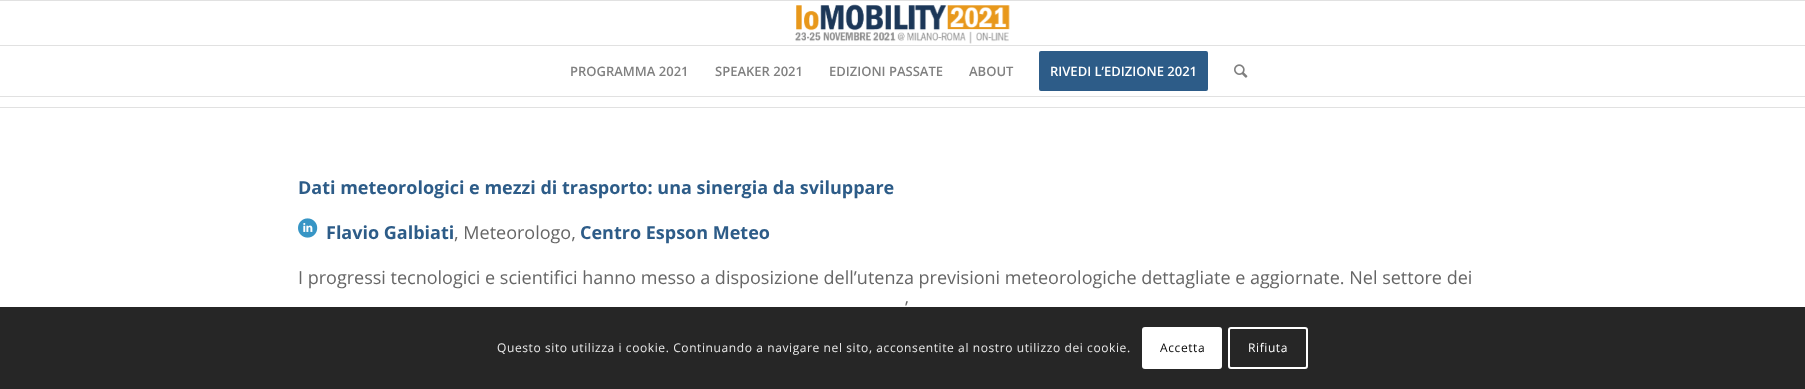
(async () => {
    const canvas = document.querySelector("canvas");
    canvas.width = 1805;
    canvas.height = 389;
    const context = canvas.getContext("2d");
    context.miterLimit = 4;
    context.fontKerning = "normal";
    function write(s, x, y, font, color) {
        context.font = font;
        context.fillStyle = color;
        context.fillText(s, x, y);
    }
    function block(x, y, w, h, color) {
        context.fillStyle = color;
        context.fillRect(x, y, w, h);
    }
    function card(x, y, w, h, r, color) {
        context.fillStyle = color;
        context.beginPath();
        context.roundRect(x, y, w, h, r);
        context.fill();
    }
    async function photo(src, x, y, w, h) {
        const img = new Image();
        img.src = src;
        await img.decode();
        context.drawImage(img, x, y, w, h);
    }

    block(0, 0, 1805, 389, "rgb(255, 255, 255)");
    block(0, 0, 1805, 1, "rgb(225, 225, 225)");
    block(0, 96, 1805, 1, "rgb(225, 225, 225)");
    await photo("media/1.png", 795, 4, 215, 40);
    block(0, 45, 1805, 1, "rgb(225, 225, 225)");
    write("PROGRAMMA 2021", 570, 76, "600 13px Open Sans", "rgb(128, 128, 128)");
    write("SPEAKER 2021", 715, 76, "600 13px Open Sans", "rgb(128, 128, 128)");
    write("EDIZIONI PASSATE", 829, 76, "600 13px Open Sans", "rgb(128, 128, 128)");
    write("ABOUT", 969, 76, "600 13px Open Sans", "rgb(128, 128, 128)");
    context.fillStyle = "rgb(45, 92, 136)";
    context.beginPath();
    context.roundRect(1040, 52, 167, 38, 1);
    context.fill();
    context.strokeStyle = "rgb(45, 92, 136)";
    context.lineWidth = 2;
    context.stroke();
    write("RIVEDI L’EDIZIONE 2021", 1050, 76, "600 13px Open Sans", "rgb(255, 255, 255)");
    await photo("media/2.png", 1234, 64, 14, 14);
    block(0, 107, 1805, 1, "rgb(225, 225, 225)");
    write("Dati meteorologici e mezzi di trasporto: una sinergia da sviluppare", 298, 194, "bold 18px Open Sans", "rgb(45, 92, 136)");
    await photo("media/3.png", 298, 218, 20, 20);
    write("Flavio Galbiati", 326, 239, "bold 18px Open Sans", "rgb(45, 92, 136)");
    write(", Meteorologo,", 454, 239, "18px Open Sans", "rgb(102, 102, 102)");
    write("Centro Espson Meteo", 580, 239, "bold 18px Open Sans", "rgb(45, 92, 136)");
    write("I progressi tecnologici e scientifici hanno messo a disposizione dell’utenza previsioni meteorologiche dettagliate e aggiornate. Nel settore dei", 298, 284, "18px Open Sans", "rgb(102, 102, 102)");
    write("’", 905, 314, "18px Open Sans", "rgb(102, 102, 102)");
    block(0, 307, 1805, 82, "rgba(0, 0, 0, 0.85)");
    context.letterSpacing = "0.6px";
    write("Questo sito utilizza i cookie. Continuando a navigare nel sito, acconsentite al nostro utilizzo dei cookie.", 497, 352, "12px Open Sans", "rgb(233, 233, 233)");
    card(1142, 327, 80, 42, 3, "rgb(255, 255, 255)");
    write("Accetta", 1160, 352, "12px Open Sans", "rgb(0, 0, 0)");
    context.beginPath();
    context.roundRect(1229, 328, 78, 40, 2);
    context.strokeStyle = "rgb(255, 255, 255)";
    context.stroke();
    write("Rifiuta", 1248, 352, "12px Open Sans", "rgb(255, 255, 255)");
})();
